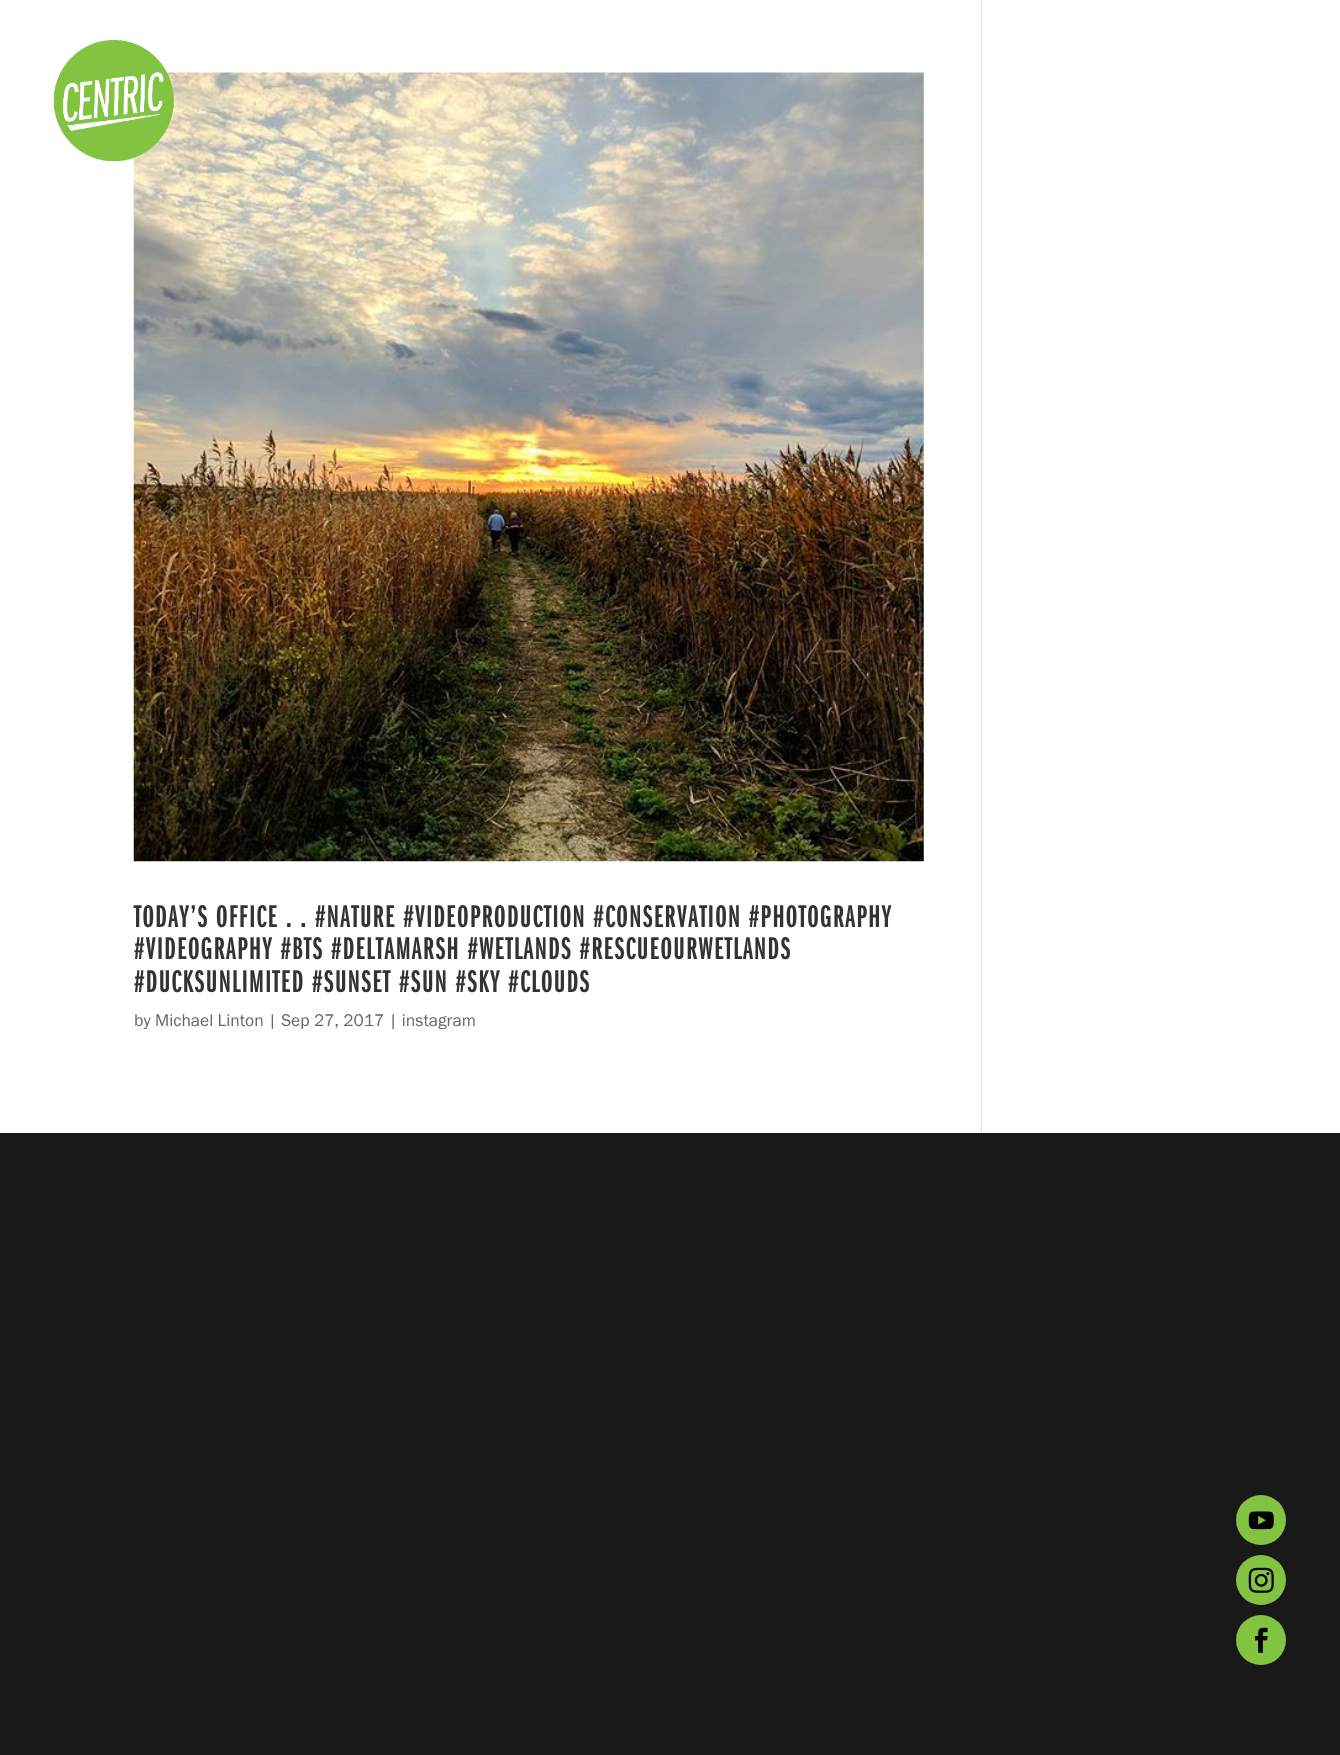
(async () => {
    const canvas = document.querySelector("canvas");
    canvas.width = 1340;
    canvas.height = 1755;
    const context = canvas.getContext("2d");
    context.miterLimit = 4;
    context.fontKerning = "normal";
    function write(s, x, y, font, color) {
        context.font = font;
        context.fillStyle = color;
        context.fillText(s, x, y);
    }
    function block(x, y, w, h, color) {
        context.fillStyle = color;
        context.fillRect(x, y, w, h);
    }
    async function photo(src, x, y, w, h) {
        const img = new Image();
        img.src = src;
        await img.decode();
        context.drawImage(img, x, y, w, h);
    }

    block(0, 0, 1340, 1755, "rgb(25, 25, 25)");
    block(0, 0, 1340, 1133, "rgb(255, 255, 255)");
    await photo("media/5.png", 133, 72, 791, 790);
    await photo("media/1.png", 53, 40, 121, 122);
    context.fillStyle = "rgb(130, 195, 65)";
    context.beginPath();
    context.arc(1261, 1520, 25, 0, Math.PI * 2);
    context.fill();
    await photo("media/2.png", 1248, 1511, 26, 19);
    context.beginPath();
    context.arc(1261, 1580, 25, 0, Math.PI * 2);
    context.fill();
    await photo("media/3.png", 1248, 1567, 26, 26);
    context.beginPath();
    context.arc(1261, 1640, 25, 0, Math.PI * 2);
    context.fill();
    await photo("media/4.png", 1255, 1627, 13, 26);
    context.letterSpacing = "1.25px";
    write("TODAY’S OFFICE . . #NATURE #VIDEOPRODUCTION #CONSERVATION #PHOTOGRAPHY", 134, 927, "600 32.5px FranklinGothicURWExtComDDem", "rgb(51, 51, 51)");
    write("#VIDEOGRAPHY #BTS #DELTAMARSH #WETLANDS #RESCUEOURWETLANDS", 134, 959, "600 32.5px FranklinGothicURWExtComDDem", "rgb(51, 51, 51)");
    write("#DUCKSUNLIMITED #SUNSET #SUN #SKY #CLOUDS", 134, 992, "600 32.5px FranklinGothicURWExtComDDem", "rgb(51, 51, 51)");
    context.letterSpacing = "0px";
    write("by Michael Linton | Sep 27, 2017 | instagram", 134, 1026, "17.5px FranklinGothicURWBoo", "rgb(102, 102, 102)");
    block(981, 0, 1, 1133, "rgb(226, 226, 226)");
})();
